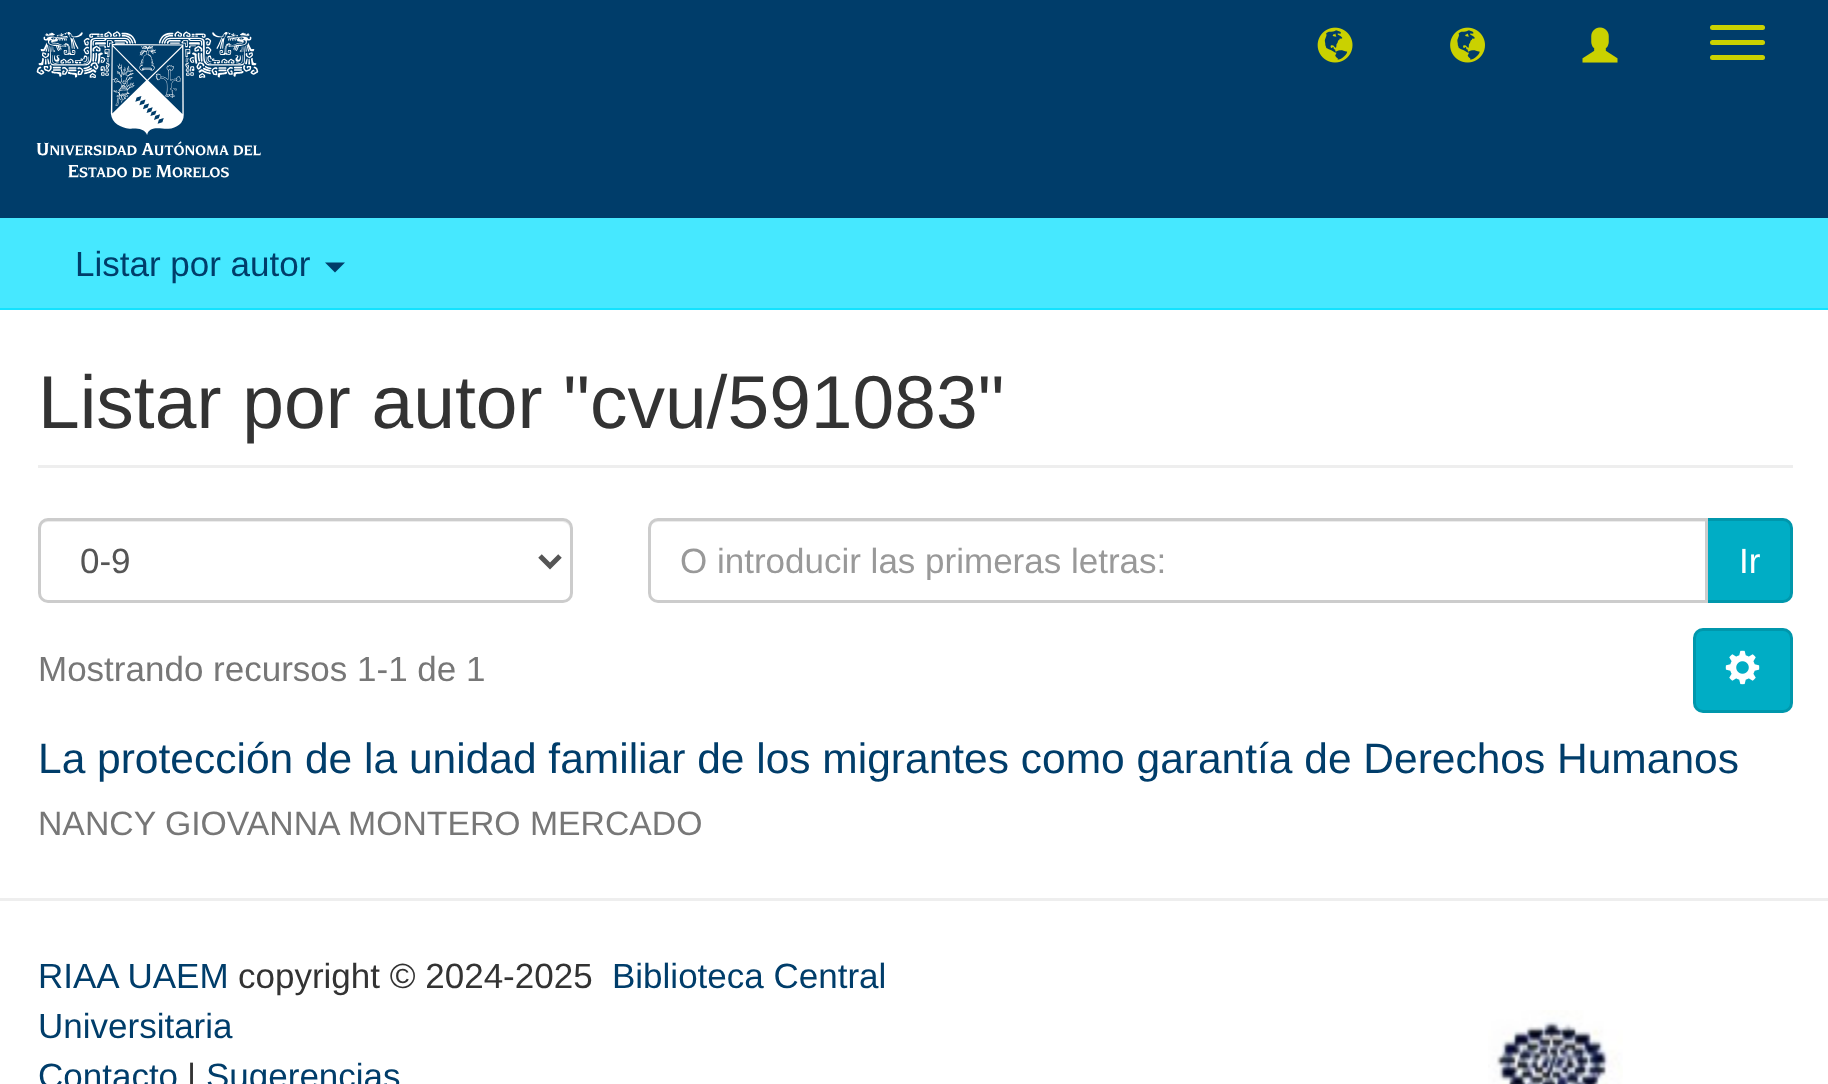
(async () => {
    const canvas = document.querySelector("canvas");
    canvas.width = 1828;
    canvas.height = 1084;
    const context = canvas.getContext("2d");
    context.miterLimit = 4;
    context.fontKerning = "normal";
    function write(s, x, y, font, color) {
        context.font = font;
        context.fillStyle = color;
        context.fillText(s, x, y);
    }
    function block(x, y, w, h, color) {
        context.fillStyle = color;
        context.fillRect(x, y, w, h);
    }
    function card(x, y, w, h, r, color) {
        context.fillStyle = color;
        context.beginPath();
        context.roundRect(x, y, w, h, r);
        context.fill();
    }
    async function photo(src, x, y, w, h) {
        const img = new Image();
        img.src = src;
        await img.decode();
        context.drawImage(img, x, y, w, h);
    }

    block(0, 0, 1828, 1084, "rgb(70, 232, 255)");
    block(0, 0, 1828, 218, "rgb(0, 61, 106)");
    await photo("media/1.png", 36, 31, 225, 147);
    await photo("media/2.png", 1317, 27, 36, 36);
    await photo("media/3.png", 1450, 27, 35, 36);
    await photo("media/4.png", 1582, 27, 36, 36);
    card(1710, 25, 55, 5, 2.5, "rgb(202, 209, 0)");
    card(1710, 40, 55, 5, 2.5, "rgb(202, 209, 0)");
    card(1710, 55, 55, 5, 2.5, "rgb(202, 209, 0)");
    block(0, 308, 1828, 2, "rgb(19, 226, 255)");
    write("Listar por autor", 75, 276, "35px Liberation Sans", "rgb(0, 61, 106)");
    context.beginPath();
    context.moveTo(325, 262.5);
    context.lineTo(345, 262.5);
    context.lineTo(335, 272.5);
    context.closePath();
    context.fill();
    block(0, 310, 1828, 774, "rgb(255, 255, 255)");
    block(38, 465, 1755, 3, "rgb(238, 238, 238)");
    write("Listar por autor \"cvu/591083\"", 38, 428, "75px Liberation Sans", "rgb(51, 51, 51)");
    context.fillStyle = "rgb(236, 236, 236)";
    context.beginPath();
    context.moveTo(48, 522);
    context.lineTo(562, 522);
    context.bezierCurveTo(567, 522, 570, 526, 570, 530);
    context.lineTo(570, 528);
    context.bezierCurveTo(570, 524, 566, 520, 562, 520);
    context.lineTo(48, 520);
    context.bezierCurveTo(44, 520, 40, 524, 40, 528);
    context.lineTo(40, 530);
    context.bezierCurveTo(40, 526, 43, 522, 48, 522);
    context.closePath();
    context.fill();
    context.beginPath();
    context.roundRect(39.5, 519.5, 532, 82, 8.5);
    context.strokeStyle = "rgb(204, 204, 204)";
    context.lineWidth = 3;
    context.stroke();
    context.beginPath();
    context.moveTo(540, 556);
    context.lineTo(550, 566);
    context.lineTo(560, 556);
    context.strokeStyle = "rgb(85, 85, 85)";
    context.lineWidth = 5;
    context.stroke();
    write("0-9", 80, 573, "35px Liberation Sans", "rgb(85, 85, 85)");
    context.fillStyle = "rgb(0, 173, 197)";
    context.beginPath();
    context.roundRect(1706.5, 519.5, 85, 82, [0, 8.5, 8.5, 0]);
    context.fill();
    context.strokeStyle = "rgb(0, 151, 172)";
    context.lineWidth = 3;
    context.stroke();
    context.fillStyle = "rgb(255, 255, 255)";
    context.beginPath();
    context.roundRect(648, 518, 1060, 85, [10, 0, 0, 10]);
    context.fill();
    context.fillStyle = "rgb(236, 236, 236)";
    context.beginPath();
    context.moveTo(658, 522);
    context.lineTo(1705, 522);
    context.lineTo(1705, 520);
    context.lineTo(658, 520);
    context.bezierCurveTo(652, 520, 650, 525, 650, 530);
    context.bezierCurveTo(650, 526, 653, 522, 658, 522);
    context.closePath();
    context.fill();
    context.beginPath();
    context.roundRect(649.5, 519.5, 1057, 82, [8.5, 0, 0, 8.5]);
    context.strokeStyle = "rgb(204, 204, 204)";
    context.stroke();
    context.save();
    context.beginPath();
    context.rect(680, 540, 995, 40);
    context.clip();
    write("O introducir las primeras letras:", 680, 573, "35px Liberation Sans", "rgb(153, 153, 153)");
    context.restore();
    write("Ir", 1739, 573, "35px Liberation Sans", "rgb(255, 255, 255)");
    write("Mostrando recursos 1-1 de 1", 38, 681, "35px Liberation Sans", "rgb(119, 119, 119)");
    context.fillStyle = "rgb(0, 173, 197)";
    context.beginPath();
    context.roundRect(1694.5, 629.5, 97, 82, 8.5);
    context.fill();
    context.strokeStyle = "rgb(0, 151, 172)";
    context.stroke();
    await photo("media/5.png", 1725, 650, 35, 35);
    write("La protección de la unidad familiar de los migrantes como garantía de Derechos Humanos", 38, 773, "42.5px Liberation Sans", "rgb(0, 61, 106)");
    write("NANCY GIOVANNA MONTERO MERCADO", 38, 835, "33.75px Liberation Sans", "rgb(119, 119, 119)");
    block(0, 898, 1828, 3, "rgb(238, 238, 238)");
    write("RIAA UAEM", 38, 988, "35px Liberation Sans", "rgb(0, 61, 106)");
    write("copyright © 2024-2025", 238, 988, "35px Liberation Sans", "rgb(51, 51, 51)");
    write("Biblioteca Central", 612, 988, "35px Liberation Sans", "rgb(0, 61, 106)");
    write("Universitaria", 38, 1038, "35px Liberation Sans", "rgb(0, 61, 106)");
    write("Contacto", 38, 1088, "35px Liberation Sans", "rgb(0, 61, 106)");
    write("|", 187, 1088, "35px Liberation Sans", "rgb(51, 51, 51)");
    write("Sugerencias", 206, 1088, "35px Liberation Sans", "rgb(0, 61, 106)");
    await photo("media/6.png", 1488, 1010, 135, 74);
})();
